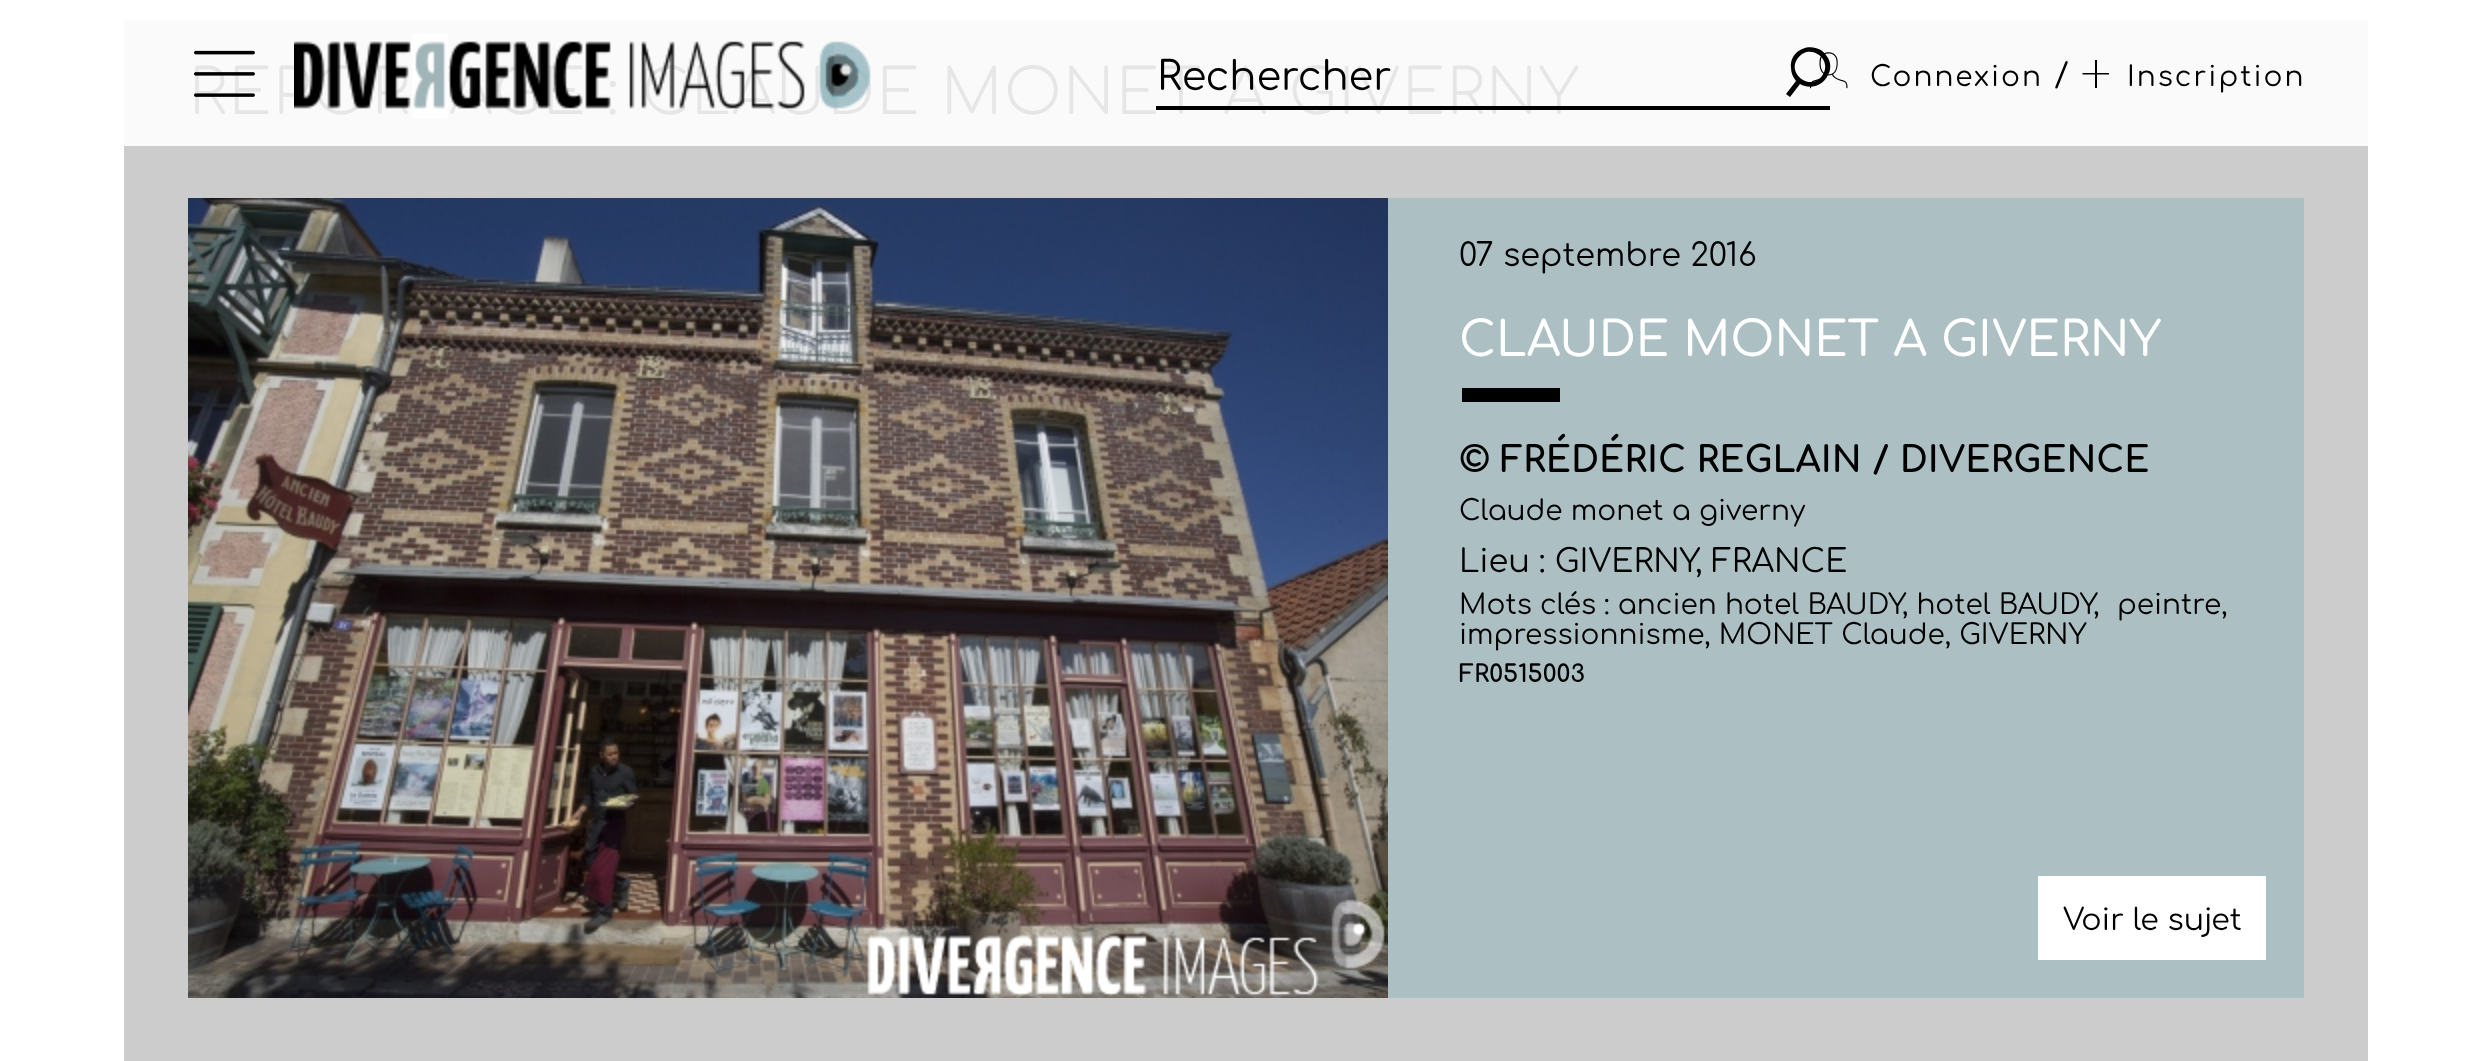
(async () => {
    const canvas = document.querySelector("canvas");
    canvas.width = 2491;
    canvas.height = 1061;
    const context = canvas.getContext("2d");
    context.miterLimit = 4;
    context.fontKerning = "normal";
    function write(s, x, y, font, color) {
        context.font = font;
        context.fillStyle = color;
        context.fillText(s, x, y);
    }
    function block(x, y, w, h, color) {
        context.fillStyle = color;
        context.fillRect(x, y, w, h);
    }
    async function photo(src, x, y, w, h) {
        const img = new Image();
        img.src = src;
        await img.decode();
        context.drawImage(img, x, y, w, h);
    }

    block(0, 0, 2491, 1061, "rgb(255, 255, 255)");
    block(124, 146, 2244, 915, "rgb(204, 204, 204)");
    block(124, 20, 2244, 126, "rgb(250, 250, 250)");
    context.letterSpacing = "2px";
    write("REPORTAGE : CLAUDE MONET A GIVERNY", 189, 114, "300 62px Comfortaa", "rgb(230, 230, 230)");
    await photo("media/1.png", 194, 50, 61, 47);
    await photo("media/2.png", 294, 34, 577, 84);
    block(1156, 106, 674, 4, "rgb(0, 0, 0)");
    context.letterSpacing = "0px";
    write("Rechercher", 1157, 90, "40px Comfortaa", "rgb(0, 0, 0)");
    context.beginPath();
    context.moveTo(1790, 97);
    context.lineTo(1800, 84);
    context.bezierCurveTo(1810, 90, 1823, 86, 1828, 75);
    context.bezierCurveTo(1831, 70, 1831, 63, 1828, 58);
    context.bezierCurveTo(1818, 39, 1789, 47, 1791, 68);
    context.bezierCurveTo(1791, 73, 1793, 77, 1796, 81);
    context.lineTo(1786, 94);
    context.closePath();
    context.moveTo(1822, 76);
    context.bezierCurveTo(1810, 92, 1786, 73, 1798, 58);
    context.bezierCurveTo(1810, 42, 1834, 60, 1822, 76);
    context.closePath();
    context.fill();
    await photo("media/3.png", 1810, 52, 38, 37);
    context.letterSpacing = "2px";
    write("Connexion", 1870, 86, "28px Comfortaa", "rgb(0, 0, 0)");
    write("/", 2054, 86, "32px Comfortaa", "rgb(0, 0, 0)");
    context.beginPath();
    context.moveTo(2095, 60);
    context.lineTo(2097, 60);
    context.lineTo(2097, 88);
    context.lineTo(2095, 88);
    context.closePath();
    context.moveTo(2082.5, 73);
    context.lineTo(2109, 73);
    context.lineTo(2109, 74.5);
    context.lineTo(2082.5, 74.5);
    context.closePath();
    context.fill();
    write("Inscription", 2127, 86, "28px Comfortaa", "rgb(0, 0, 0)");
    block(1388, 198, 916, 800, "rgb(172, 191, 195)");
    await photo("media/4.png", 188, 198, 1200, 800);
    context.letterSpacing = "0px";
    write("07 septembre 2016", 1459, 266, "32px Comfortaa", "rgb(0, 0, 0)");
    write("CLAUDE MONET A GIVERNY", 1459, 356, "500 48px Comfortaa", "rgb(255, 255, 255)");
    block(1462, 388, 98, 14, "rgb(0, 0, 0)");
    write("© FRÉDÉRIC REGLAIN / DIVERGENCE", 1459, 472, "bold 36px Comfortaa", "rgb(0, 0, 0)");
    write("Claude monet a giverny", 1459, 520, "28px Comfortaa", "rgb(0, 0, 0)");
    write("Lieu : GIVERNY, FRANCE", 1459, 572, "32px Comfortaa", "rgb(0, 0, 0)");
    write("Mots clés : ancien hotel BAUDY, hotel BAUDY,", 1459, 614, "28px Comfortaa", "rgb(0, 0, 0)");
    write("peintre,", 2117, 614, "28px Comfortaa", "rgb(0, 0, 0)");
    write("impressionnisme, MONET Claude, GIVERNY", 1459, 644, "28px Comfortaa", "rgb(0, 0, 0)");
    write("FR0515003", 1459, 682, "bold 24px Comfortaa", "rgb(0, 0, 0)");
    block(2038, 876, 228, 84, "rgb(255, 255, 255)");
    write("Voir le sujet", 2063, 930, "30px Comfortaa", "rgb(0, 0, 0)");
})();
